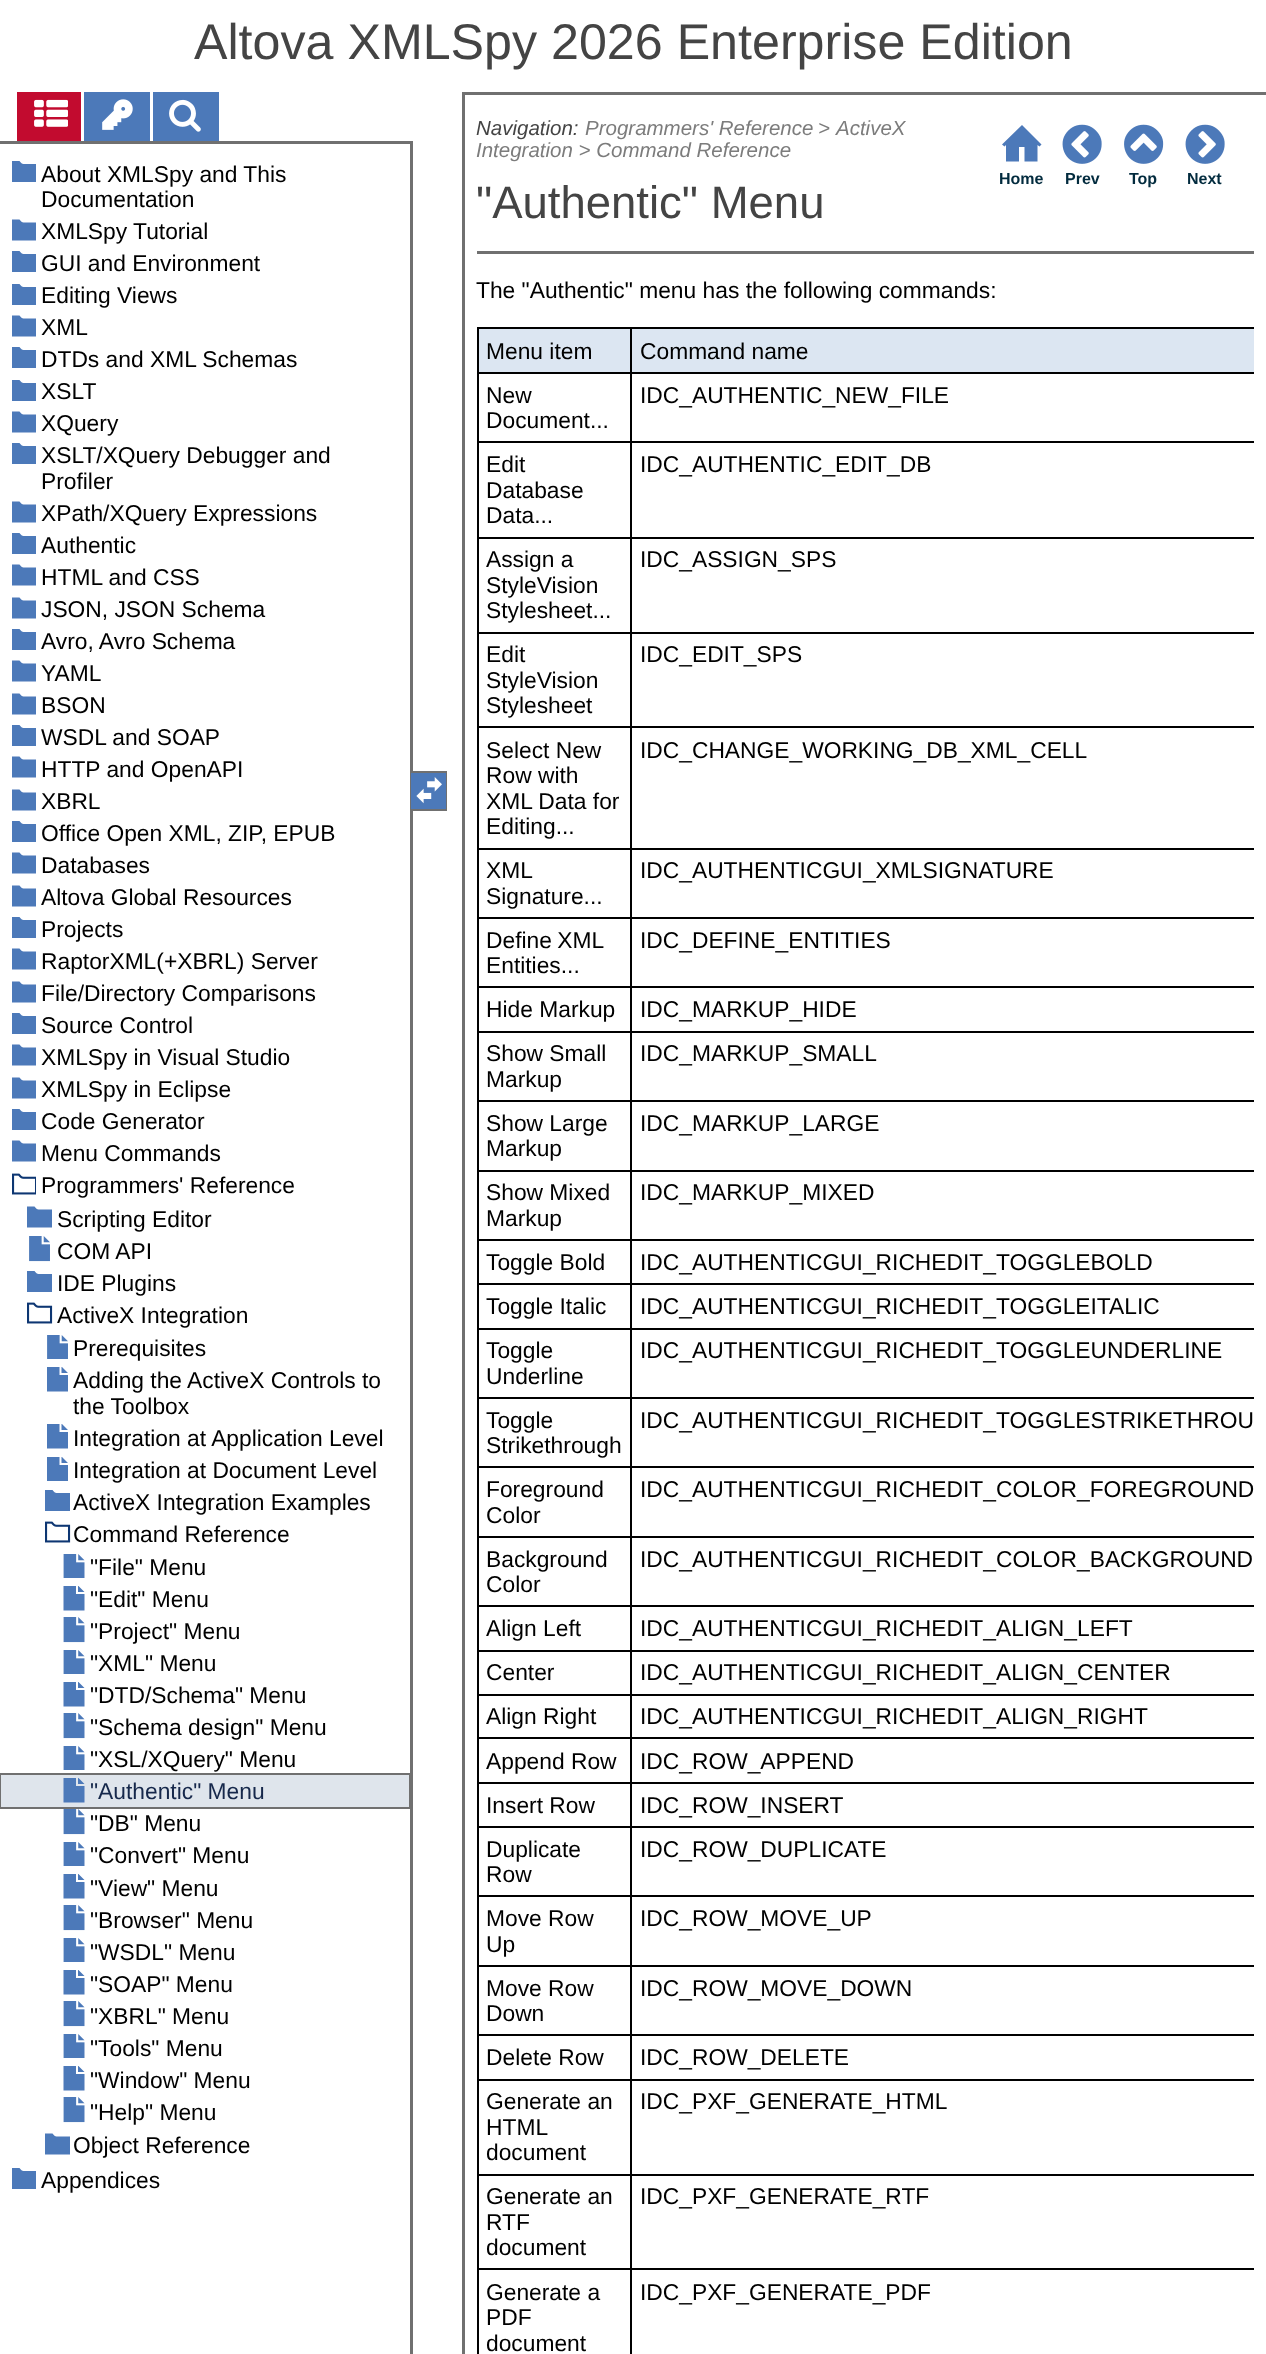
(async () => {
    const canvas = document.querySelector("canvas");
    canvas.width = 1266;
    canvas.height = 2354;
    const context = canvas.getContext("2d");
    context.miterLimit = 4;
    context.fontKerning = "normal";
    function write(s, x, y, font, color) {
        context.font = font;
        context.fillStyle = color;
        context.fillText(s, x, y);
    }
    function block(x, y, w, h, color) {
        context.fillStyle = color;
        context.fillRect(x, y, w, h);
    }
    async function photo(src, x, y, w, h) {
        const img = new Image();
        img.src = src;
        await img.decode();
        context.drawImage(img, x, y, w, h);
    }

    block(0, 0, 1266, 2354, "rgb(255, 255, 255)");
    write("Altova XMLSpy 2026 Enterprise Edition", 194, 59, "50.2px Liberation Sans", "rgb(68, 68, 68)");
    block(17, 92, 64, 49, "rgb(194, 11, 47)");
    block(84, 92, 66, 49, "rgb(76, 121, 185)");
    block(153, 92, 66, 49, "rgb(76, 121, 185)");
    await photo("media/1.png", 34, 99, 34, 28);
    await photo("media/2.png", 102, 99, 31, 31);
    await photo("media/3.png", 169, 99, 32, 33);
    block(0, 141, 413, 3, "rgb(112, 112, 112)");
    block(410, 141, 3, 2213, "rgb(112, 112, 112)");
    context.save();
    context.beginPath();
    context.rect(12, 159, 24, 26);
    context.clip();
    context.fillStyle = "rgb(76, 121, 185)";
    context.beginPath();
    context.moveTo(23.5, 164);
    context.bezierCurveTo(22, 164, 21, 163, 19.5, 161);
    context.lineTo(12, 161);
    context.lineTo(12, 182);
    context.lineTo(37, 182);
    context.lineTo(37, 164);
    context.closePath();
    context.fill();
    context.restore();
    write("About XMLSpy and This", 41, 182, "22.8px Liberation Sans", "rgb(0, 0, 0)");
    write("Documentation", 41, 207, "22.8px Liberation Sans", "rgb(0, 0, 0)");
    context.save();
    context.beginPath();
    context.rect(12, 218, 24, 25);
    context.clip();
    context.fillStyle = "rgb(76, 121, 185)";
    context.beginPath();
    context.moveTo(23.5, 222.5);
    context.bezierCurveTo(22, 222.5, 21, 221.5, 19.5, 219.5);
    context.lineTo(12, 219.5);
    context.lineTo(12, 240.5);
    context.lineTo(37, 240.5);
    context.lineTo(37, 222.5);
    context.closePath();
    context.fill();
    context.restore();
    write("XMLSpy Tutorial", 41, 239, "22.8px Liberation Sans", "rgb(0, 0, 0)");
    context.save();
    context.beginPath();
    context.rect(12, 249, 24, 26);
    context.clip();
    context.fillStyle = "rgb(76, 121, 185)";
    context.beginPath();
    context.moveTo(23.5, 254);
    context.bezierCurveTo(22, 254, 21, 253, 19.5, 251);
    context.lineTo(12, 251);
    context.lineTo(12, 272);
    context.lineTo(37, 272);
    context.lineTo(37, 254);
    context.closePath();
    context.fill();
    context.restore();
    write("GUI and Environment", 41, 271, "22.8px Liberation Sans", "rgb(0, 0, 0)");
    context.save();
    context.beginPath();
    context.rect(12, 282, 24, 24);
    context.clip();
    context.fillStyle = "rgb(76, 121, 185)";
    context.beginPath();
    context.moveTo(23.5, 287);
    context.bezierCurveTo(22, 287, 21, 286, 19.5, 284);
    context.lineTo(12, 284);
    context.lineTo(12, 305);
    context.lineTo(37, 305);
    context.lineTo(37, 287);
    context.closePath();
    context.fill();
    context.restore();
    write("Editing Views", 41, 303, "22.8px Liberation Sans", "rgb(0, 0, 0)");
    context.save();
    context.beginPath();
    context.rect(12, 314, 24, 25);
    context.clip();
    context.fillStyle = "rgb(76, 121, 185)";
    context.beginPath();
    context.moveTo(23.5, 318.5);
    context.bezierCurveTo(22, 318.5, 21, 317.5, 19.5, 315.5);
    context.lineTo(12, 315.5);
    context.lineTo(12, 336.5);
    context.lineTo(37, 336.5);
    context.lineTo(37, 318.5);
    context.closePath();
    context.fill();
    context.restore();
    write("XML", 41, 335, "22.8px Liberation Sans", "rgb(0, 0, 0)");
    context.save();
    context.beginPath();
    context.rect(12, 345, 24, 26);
    context.clip();
    context.fillStyle = "rgb(76, 121, 185)";
    context.beginPath();
    context.moveTo(23.5, 350);
    context.bezierCurveTo(22, 350, 21, 349, 19.5, 347);
    context.lineTo(12, 347);
    context.lineTo(12, 368);
    context.lineTo(37, 368);
    context.lineTo(37, 350);
    context.closePath();
    context.fill();
    context.restore();
    write("DTDs and XML Schemas", 41, 367, "22.8px Liberation Sans", "rgb(0, 0, 0)");
    context.save();
    context.beginPath();
    context.rect(12, 378, 24, 24);
    context.clip();
    context.fillStyle = "rgb(76, 121, 185)";
    context.beginPath();
    context.moveTo(23.5, 383);
    context.bezierCurveTo(22, 383, 21, 382, 19.5, 380);
    context.lineTo(12, 380);
    context.lineTo(12, 401);
    context.lineTo(37, 401);
    context.lineTo(37, 383);
    context.closePath();
    context.fill();
    context.restore();
    write("XSLT", 41, 399, "22.8px Liberation Sans", "rgb(0, 0, 0)");
    context.save();
    context.beginPath();
    context.rect(12, 410, 24, 25);
    context.clip();
    context.fillStyle = "rgb(76, 121, 185)";
    context.beginPath();
    context.moveTo(23.5, 414.5);
    context.bezierCurveTo(22, 414.5, 21, 413.5, 19.5, 411.5);
    context.lineTo(12, 411.5);
    context.lineTo(12, 432.5);
    context.lineTo(37, 432.5);
    context.lineTo(37, 414.5);
    context.closePath();
    context.fill();
    context.restore();
    write("XQuery", 41, 431, "22.8px Liberation Sans", "rgb(0, 0, 0)");
    context.save();
    context.beginPath();
    context.rect(12, 441, 24, 26);
    context.clip();
    context.fillStyle = "rgb(76, 121, 185)";
    context.beginPath();
    context.moveTo(23.5, 446);
    context.bezierCurveTo(22, 446, 21, 445, 19.5, 443);
    context.lineTo(12, 443);
    context.lineTo(12, 464);
    context.lineTo(37, 464);
    context.lineTo(37, 446);
    context.closePath();
    context.fill();
    context.restore();
    write("XSLT/XQuery Debugger and", 41, 463, "22.8px Liberation Sans", "rgb(0, 0, 0)");
    write("Profiler", 41, 489, "22.8px Liberation Sans", "rgb(0, 0, 0)");
    context.save();
    context.beginPath();
    context.rect(12, 500, 24, 24);
    context.clip();
    context.fillStyle = "rgb(76, 121, 185)";
    context.beginPath();
    context.moveTo(23.5, 504.5);
    context.bezierCurveTo(22, 504.5, 21, 503.5, 19.5, 501.5);
    context.lineTo(12, 501.5);
    context.lineTo(12, 522.5);
    context.lineTo(37, 522.5);
    context.lineTo(37, 504.5);
    context.closePath();
    context.fill();
    context.restore();
    write("XPath/XQuery Expressions", 41, 521, "22.8px Liberation Sans", "rgb(0, 0, 0)");
    context.save();
    context.beginPath();
    context.rect(12, 531, 24, 26);
    context.clip();
    context.fillStyle = "rgb(76, 121, 185)";
    context.beginPath();
    context.moveTo(23.5, 536);
    context.bezierCurveTo(22, 536, 21, 535, 19.5, 533);
    context.lineTo(12, 533);
    context.lineTo(12, 554);
    context.lineTo(37, 554);
    context.lineTo(37, 536);
    context.closePath();
    context.fill();
    context.restore();
    write("Authentic", 41, 553, "22.8px Liberation Sans", "rgb(0, 0, 0)");
    context.save();
    context.beginPath();
    context.rect(12, 563, 24, 25);
    context.clip();
    context.fillStyle = "rgb(76, 121, 185)";
    context.beginPath();
    context.moveTo(23.5, 567.5);
    context.bezierCurveTo(22, 567.5, 21, 566.5, 19.5, 564.5);
    context.lineTo(12, 564.5);
    context.lineTo(12, 585.5);
    context.lineTo(37, 585.5);
    context.lineTo(37, 567.5);
    context.closePath();
    context.fill();
    context.restore();
    write("HTML and CSS", 41, 585, "22.8px Liberation Sans", "rgb(0, 0, 0)");
    context.save();
    context.beginPath();
    context.rect(12, 596, 24, 24);
    context.clip();
    context.fillStyle = "rgb(76, 121, 185)";
    context.beginPath();
    context.moveTo(23.5, 600.5);
    context.bezierCurveTo(22, 600.5, 21, 599.5, 19.5, 597.5);
    context.lineTo(12, 597.5);
    context.lineTo(12, 618.5);
    context.lineTo(37, 618.5);
    context.lineTo(37, 600.5);
    context.closePath();
    context.fill();
    context.restore();
    write("JSON, JSON Schema", 41, 617, "22.8px Liberation Sans", "rgb(0, 0, 0)");
    context.save();
    context.beginPath();
    context.rect(12, 627, 24, 26);
    context.clip();
    context.fillStyle = "rgb(76, 121, 185)";
    context.beginPath();
    context.moveTo(23.5, 632);
    context.bezierCurveTo(22, 632, 21, 631, 19.5, 629);
    context.lineTo(12, 629);
    context.lineTo(12, 650);
    context.lineTo(37, 650);
    context.lineTo(37, 632);
    context.closePath();
    context.fill();
    context.restore();
    write("Avro, Avro Schema", 41, 649, "22.8px Liberation Sans", "rgb(0, 0, 0)");
    context.save();
    context.beginPath();
    context.rect(12, 659, 24, 25);
    context.clip();
    context.fillStyle = "rgb(76, 121, 185)";
    context.beginPath();
    context.moveTo(23.5, 663.5);
    context.bezierCurveTo(22, 663.5, 21, 662.5, 19.5, 660.5);
    context.lineTo(12, 660.5);
    context.lineTo(12, 681.5);
    context.lineTo(37, 681.5);
    context.lineTo(37, 663.5);
    context.closePath();
    context.fill();
    context.restore();
    write("YAML", 41, 681, "22.8px Liberation Sans", "rgb(0, 0, 0)");
    context.save();
    context.beginPath();
    context.rect(12, 692, 24, 24);
    context.clip();
    context.fillStyle = "rgb(76, 121, 185)";
    context.beginPath();
    context.moveTo(23.5, 696.5);
    context.bezierCurveTo(22, 696.5, 21, 695.5, 19.5, 693.5);
    context.lineTo(12, 693.5);
    context.lineTo(12, 714.5);
    context.lineTo(37, 714.5);
    context.lineTo(37, 696.5);
    context.closePath();
    context.fill();
    context.restore();
    write("BSON", 41, 713, "22.8px Liberation Sans", "rgb(0, 0, 0)");
    context.save();
    context.beginPath();
    context.rect(12, 723, 24, 26);
    context.clip();
    context.fillStyle = "rgb(76, 121, 185)";
    context.beginPath();
    context.moveTo(23.5, 728);
    context.bezierCurveTo(22, 728, 21, 727, 19.5, 725);
    context.lineTo(12, 725);
    context.lineTo(12, 746);
    context.lineTo(37, 746);
    context.lineTo(37, 728);
    context.closePath();
    context.fill();
    context.restore();
    write("WSDL and SOAP", 41, 745, "22.8px Liberation Sans", "rgb(0, 0, 0)");
    context.save();
    context.beginPath();
    context.rect(12, 755, 24, 25);
    context.clip();
    context.fillStyle = "rgb(76, 121, 185)";
    context.beginPath();
    context.moveTo(23.5, 759.5);
    context.bezierCurveTo(22, 759.5, 21, 758.5, 19.5, 756.5);
    context.lineTo(12, 756.5);
    context.lineTo(12, 777.5);
    context.lineTo(37, 777.5);
    context.lineTo(37, 759.5);
    context.closePath();
    context.fill();
    context.restore();
    write("HTTP and OpenAPI", 41, 777, "22.8px Liberation Sans", "rgb(0, 0, 0)");
    context.save();
    context.beginPath();
    context.rect(12, 788, 24, 24);
    context.clip();
    context.fillStyle = "rgb(76, 121, 185)";
    context.beginPath();
    context.moveTo(23.5, 792.5);
    context.bezierCurveTo(22, 792.5, 21, 791.5, 19.5, 789.5);
    context.lineTo(12, 789.5);
    context.lineTo(12, 810.5);
    context.lineTo(37, 810.5);
    context.lineTo(37, 792.5);
    context.closePath();
    context.fill();
    context.restore();
    write("XBRL", 41, 809, "22.8px Liberation Sans", "rgb(0, 0, 0)");
    context.save();
    context.beginPath();
    context.rect(12, 819, 24, 26);
    context.clip();
    context.fillStyle = "rgb(76, 121, 185)";
    context.beginPath();
    context.moveTo(23.5, 824);
    context.bezierCurveTo(22, 824, 21, 823, 19.5, 821);
    context.lineTo(12, 821);
    context.lineTo(12, 842);
    context.lineTo(37, 842);
    context.lineTo(37, 824);
    context.closePath();
    context.fill();
    context.restore();
    write("Office Open XML, ZIP, EPUB", 41, 841, "22.8px Liberation Sans", "rgb(0, 0, 0)");
    context.save();
    context.beginPath();
    context.rect(12, 851, 24, 25);
    context.clip();
    context.fillStyle = "rgb(76, 121, 185)";
    context.beginPath();
    context.moveTo(23.5, 855.5);
    context.bezierCurveTo(22, 855.5, 21, 854.5, 19.5, 852.5);
    context.lineTo(12, 852.5);
    context.lineTo(12, 873.5);
    context.lineTo(37, 873.5);
    context.lineTo(37, 855.5);
    context.closePath();
    context.fill();
    context.restore();
    write("Databases", 41, 873, "22.8px Liberation Sans", "rgb(0, 0, 0)");
    context.save();
    context.beginPath();
    context.rect(12, 884, 24, 24);
    context.clip();
    context.fillStyle = "rgb(76, 121, 185)";
    context.beginPath();
    context.moveTo(23.5, 888.5);
    context.bezierCurveTo(22, 888.5, 21, 887.5, 19.5, 885.5);
    context.lineTo(12, 885.5);
    context.lineTo(12, 906.5);
    context.lineTo(37, 906.5);
    context.lineTo(37, 888.5);
    context.closePath();
    context.fill();
    context.restore();
    write("Altova Global Resources", 41, 905, "22.8px Liberation Sans", "rgb(0, 0, 0)");
    context.save();
    context.beginPath();
    context.rect(12, 915, 24, 26);
    context.clip();
    context.fillStyle = "rgb(76, 121, 185)";
    context.beginPath();
    context.moveTo(23.5, 920);
    context.bezierCurveTo(22, 920, 21, 919, 19.5, 917);
    context.lineTo(12, 917);
    context.lineTo(12, 938);
    context.lineTo(37, 938);
    context.lineTo(37, 920);
    context.closePath();
    context.fill();
    context.restore();
    write("Projects", 41, 937, "22.8px Liberation Sans", "rgb(0, 0, 0)");
    context.save();
    context.beginPath();
    context.rect(12, 947, 24, 25);
    context.clip();
    context.fillStyle = "rgb(76, 121, 185)";
    context.beginPath();
    context.moveTo(23.5, 951.5);
    context.bezierCurveTo(22, 951.5, 21, 950.5, 19.5, 948.5);
    context.lineTo(12, 948.5);
    context.lineTo(12, 969.5);
    context.lineTo(37, 969.5);
    context.lineTo(37, 951.5);
    context.closePath();
    context.fill();
    context.restore();
    write("RaptorXML(+XBRL) Server", 41, 969, "22.8px Liberation Sans", "rgb(0, 0, 0)");
    context.save();
    context.beginPath();
    context.rect(12, 980, 24, 24);
    context.clip();
    context.fillStyle = "rgb(76, 121, 185)";
    context.beginPath();
    context.moveTo(23.5, 984.5);
    context.bezierCurveTo(22, 984.5, 21, 983.5, 19.5, 981.5);
    context.lineTo(12, 981.5);
    context.lineTo(12, 1002.5);
    context.lineTo(37, 1002.5);
    context.lineTo(37, 984.5);
    context.closePath();
    context.fill();
    context.restore();
    write("File/Directory Comparisons", 41, 1001, "22.8px Liberation Sans", "rgb(0, 0, 0)");
    context.save();
    context.beginPath();
    context.rect(12, 1011, 24, 26);
    context.clip();
    context.fillStyle = "rgb(76, 121, 185)";
    context.beginPath();
    context.moveTo(23.5, 1016);
    context.bezierCurveTo(22, 1016, 21, 1015, 19.5, 1013);
    context.lineTo(12, 1013);
    context.lineTo(12, 1034);
    context.lineTo(37, 1034);
    context.lineTo(37, 1016);
    context.closePath();
    context.fill();
    context.restore();
    write("Source Control", 41, 1033, "22.8px Liberation Sans", "rgb(0, 0, 0)");
    context.save();
    context.beginPath();
    context.rect(12, 1043, 24, 25);
    context.clip();
    context.fillStyle = "rgb(76, 121, 185)";
    context.beginPath();
    context.moveTo(23.5, 1047.5);
    context.bezierCurveTo(22, 1047.5, 21, 1046.5, 19.5, 1044.5);
    context.lineTo(12, 1044.5);
    context.lineTo(12, 1065.5);
    context.lineTo(37, 1065.5);
    context.lineTo(37, 1047.5);
    context.closePath();
    context.fill();
    context.restore();
    write("XMLSpy in Visual Studio", 41, 1065, "22.8px Liberation Sans", "rgb(0, 0, 0)");
    context.save();
    context.beginPath();
    context.rect(12, 1076, 24, 24);
    context.clip();
    context.fillStyle = "rgb(76, 121, 185)";
    context.beginPath();
    context.moveTo(23.5, 1080.5);
    context.bezierCurveTo(22, 1080.5, 21, 1079.5, 19.5, 1077.5);
    context.lineTo(12, 1077.5);
    context.lineTo(12, 1098.5);
    context.lineTo(37, 1098.5);
    context.lineTo(37, 1080.5);
    context.closePath();
    context.fill();
    context.restore();
    write("XMLSpy in Eclipse", 41, 1097, "22.8px Liberation Sans", "rgb(0, 0, 0)");
    context.save();
    context.beginPath();
    context.rect(12, 1107, 24, 26);
    context.clip();
    context.fillStyle = "rgb(76, 121, 185)";
    context.beginPath();
    context.moveTo(23.5, 1112);
    context.bezierCurveTo(22, 1112, 21, 1111, 19.5, 1109);
    context.lineTo(12, 1109);
    context.lineTo(12, 1130);
    context.lineTo(37, 1130);
    context.lineTo(37, 1112);
    context.closePath();
    context.fill();
    context.restore();
    write("Code Generator", 41, 1129, "22.8px Liberation Sans", "rgb(0, 0, 0)");
    context.save();
    context.beginPath();
    context.rect(12, 1139, 24, 25);
    context.clip();
    context.fillStyle = "rgb(76, 121, 185)";
    context.beginPath();
    context.moveTo(23.5, 1143.5);
    context.bezierCurveTo(22, 1143.5, 21, 1142.5, 19.5, 1140.5);
    context.lineTo(12, 1140.5);
    context.lineTo(12, 1161.5);
    context.lineTo(37, 1161.5);
    context.lineTo(37, 1143.5);
    context.closePath();
    context.fill();
    context.restore();
    write("Menu Commands", 41, 1161, "22.8px Liberation Sans", "rgb(0, 0, 0)");
    await photo("media/4.png", 12, 1173, 24, 22);
    write("Programmers' Reference", 41, 1193, "22.8px Liberation Sans", "rgb(0, 0, 0)");
    context.fillStyle = "rgb(76, 121, 185)";
    context.beginPath();
    context.moveTo(38.5, 1209.5);
    context.bezierCurveTo(37, 1209.5, 36, 1208.5, 34.5, 1206.5);
    context.lineTo(27, 1206.5);
    context.lineTo(27, 1227.5);
    context.lineTo(52, 1227.5);
    context.lineTo(52, 1209.5);
    context.closePath();
    context.fill();
    write("Scripting Editor", 57, 1227, "22.8px Liberation Sans", "rgb(0, 0, 0)");
    await photo("media/5.png", 29, 1236, 21, 26);
    write("COM API", 57, 1259, "22.8px Liberation Sans", "rgb(0, 0, 0)");
    context.fillStyle = "rgb(76, 121, 185)";
    context.beginPath();
    context.moveTo(38.5, 1274);
    context.bezierCurveTo(37, 1274, 36, 1273, 34.5, 1271);
    context.lineTo(27, 1271);
    context.lineTo(27, 1292);
    context.lineTo(52, 1292);
    context.lineTo(52, 1274);
    context.closePath();
    context.fill();
    write("IDE Plugins", 57, 1291, "22.8px Liberation Sans", "rgb(0, 0, 0)");
    await photo("media/6.png", 27, 1302, 26, 22);
    write("ActiveX Integration", 57, 1323, "22.8px Liberation Sans", "rgb(0, 0, 0)");
    await photo("media/7.png", 47, 1335, 21, 24);
    write("Prerequisites", 73, 1356, "22.8px Liberation Sans", "rgb(0, 0, 0)");
    context.save();
    context.beginPath();
    context.rect(45, 1367, 26, 25);
    context.clip();
    context.fillStyle = "rgb(76, 121, 185)";
    context.beginPath();
    context.moveTo(68, 1373);
    context.lineTo(61.5, 1373);
    context.lineTo(61.5, 1366.5);
    context.closePath();
    context.moveTo(59.5, 1375);
    context.lineTo(59.5, 1366.5);
    context.lineTo(47, 1366.5);
    context.lineTo(47, 1391.5);
    context.lineTo(68, 1391.5);
    context.lineTo(68, 1375);
    context.closePath();
    context.fill();
    context.restore();
    write("Adding the ActiveX Controls to", 73, 1388, "22.8px Liberation Sans", "rgb(0, 0, 0)");
    write("the Toolbox", 73, 1414, "22.8px Liberation Sans", "rgb(0, 0, 0)");
    context.save();
    context.beginPath();
    context.rect(45, 1424, 26, 25);
    context.clip();
    context.fillStyle = "rgb(76, 121, 185)";
    context.beginPath();
    context.moveTo(68, 1430);
    context.lineTo(61.5, 1430);
    context.lineTo(61.5, 1423.5);
    context.closePath();
    context.moveTo(59.5, 1432);
    context.lineTo(59.5, 1423.5);
    context.lineTo(47, 1423.5);
    context.lineTo(47, 1448.5);
    context.lineTo(68, 1448.5);
    context.lineTo(68, 1432);
    context.closePath();
    context.fill();
    context.restore();
    write("Integration at Application Level", 73, 1446, "22.8px Liberation Sans", "rgb(0, 0, 0)");
    context.save();
    context.beginPath();
    context.rect(45, 1457, 26, 24);
    context.clip();
    context.fillStyle = "rgb(76, 121, 185)";
    context.beginPath();
    context.moveTo(68, 1463);
    context.lineTo(61.5, 1463);
    context.lineTo(61.5, 1456.5);
    context.closePath();
    context.moveTo(59.5, 1465);
    context.lineTo(59.5, 1456.5);
    context.lineTo(47, 1456.5);
    context.lineTo(47, 1481.5);
    context.lineTo(68, 1481.5);
    context.lineTo(68, 1465);
    context.closePath();
    context.fill();
    context.restore();
    write("Integration at Document Level", 73, 1478, "22.8px Liberation Sans", "rgb(0, 0, 0)");
    context.fillStyle = "rgb(76, 121, 185)";
    context.beginPath();
    context.moveTo(56.5, 1493);
    context.bezierCurveTo(55, 1493, 54, 1492, 52.5, 1490);
    context.lineTo(45, 1490);
    context.lineTo(45, 1511);
    context.lineTo(70, 1511);
    context.lineTo(70, 1493);
    context.closePath();
    context.fill();
    write("ActiveX Integration Examples", 73, 1510, "22.8px Liberation Sans", "rgb(0, 0, 0)");
    await photo("media/6.png", 45, 1521, 26, 22);
    write("Command Reference", 73, 1542, "22.8px Liberation Sans", "rgb(0, 0, 0)");
    await photo("media/8.png", 63, 1554, 22, 24);
    write("\"File\" Menu", 90, 1575, "22.8px Liberation Sans", "rgb(0, 0, 0)");
    context.save();
    context.beginPath();
    context.rect(62, 1586, 25, 25);
    context.clip();
    context.fillStyle = "rgb(76, 121, 185)";
    context.beginPath();
    context.moveTo(84.5, 1592);
    context.lineTo(78, 1592);
    context.lineTo(78, 1585.5);
    context.closePath();
    context.moveTo(76, 1594);
    context.lineTo(76, 1585.5);
    context.lineTo(63.5, 1585.5);
    context.lineTo(63.5, 1610.5);
    context.lineTo(84.5, 1610.5);
    context.lineTo(84.5, 1594);
    context.closePath();
    context.fill();
    context.restore();
    write("\"Edit\" Menu", 90, 1607, "22.8px Liberation Sans", "rgb(0, 0, 0)");
    await photo("media/9.png", 63, 1617, 22, 26);
    write("\"Project\" Menu", 90, 1639, "22.8px Liberation Sans", "rgb(0, 0, 0)");
    await photo("media/8.png", 63, 1650, 22, 24);
    write("\"XML\" Menu", 90, 1671, "22.8px Liberation Sans", "rgb(0, 0, 0)");
    context.save();
    context.beginPath();
    context.rect(62, 1682, 25, 25);
    context.clip();
    context.fillStyle = "rgb(76, 121, 185)";
    context.beginPath();
    context.moveTo(84.5, 1688);
    context.lineTo(78, 1688);
    context.lineTo(78, 1681.5);
    context.closePath();
    context.moveTo(76, 1690);
    context.lineTo(76, 1681.5);
    context.lineTo(63.5, 1681.5);
    context.lineTo(63.5, 1706.5);
    context.lineTo(84.5, 1706.5);
    context.lineTo(84.5, 1690);
    context.closePath();
    context.fill();
    context.restore();
    write("\"DTD/Schema\" Menu", 90, 1703, "22.8px Liberation Sans", "rgb(0, 0, 0)");
    await photo("media/9.png", 63, 1713, 22, 26);
    write("\"Schema design\" Menu", 90, 1735, "22.8px Liberation Sans", "rgb(0, 0, 0)");
    await photo("media/8.png", 63, 1746, 22, 24);
    write("\"XSL/XQuery\" Menu", 90, 1767, "22.8px Liberation Sans", "rgb(0, 0, 0)");
    block(1, 1775, 408, 32, "rgb(223, 229, 236)");
    context.save();
    context.beginPath();
    context.rect(62, 1778, 25, 25);
    context.clip();
    context.fillStyle = "rgb(76, 121, 185)";
    context.beginPath();
    context.moveTo(84.5, 1784);
    context.lineTo(78, 1784);
    context.lineTo(78, 1777.5);
    context.closePath();
    context.moveTo(76, 1786);
    context.lineTo(76, 1777.5);
    context.lineTo(63.5, 1777.5);
    context.lineTo(63.5, 1802.5);
    context.lineTo(84.5, 1802.5);
    context.lineTo(84.5, 1786);
    context.closePath();
    context.fill();
    context.restore();
    context.save();
    context.beginPath();
    context.rect(0, 1550, 410, 579);
    context.clip();
    context.strokeStyle = "rgb(112, 112, 112)";
    context.lineWidth = 2;
    context.strokeRect(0, 1774, 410, 34);
    context.restore();
    write("\"Authentic\" Menu", 90, 1799, "22.8px Liberation Sans", "rgb(22, 40, 75)");
    await photo("media/9.png", 63, 1809, 22, 26);
    write("\"DB\" Menu", 90, 1831, "22.8px Liberation Sans", "rgb(0, 0, 0)");
    await photo("media/8.png", 63, 1842, 22, 24);
    write("\"Convert\" Menu", 90, 1863, "22.8px Liberation Sans", "rgb(0, 0, 0)");
    context.save();
    context.beginPath();
    context.rect(62, 1874, 25, 25);
    context.clip();
    context.fillStyle = "rgb(76, 121, 185)";
    context.beginPath();
    context.moveTo(84.5, 1880);
    context.lineTo(78, 1880);
    context.lineTo(78, 1873.5);
    context.closePath();
    context.moveTo(76, 1882);
    context.lineTo(76, 1873.5);
    context.lineTo(63.5, 1873.5);
    context.lineTo(63.5, 1898.5);
    context.lineTo(84.5, 1898.5);
    context.lineTo(84.5, 1882);
    context.closePath();
    context.fill();
    context.restore();
    write("\"View\" Menu", 90, 1896, "22.8px Liberation Sans", "rgb(0, 0, 0)");
    await photo("media/9.png", 63, 1905, 22, 26);
    write("\"Browser\" Menu", 90, 1928, "22.8px Liberation Sans", "rgb(0, 0, 0)");
    await photo("media/8.png", 63, 1938, 22, 24);
    write("\"WSDL\" Menu", 90, 1960, "22.8px Liberation Sans", "rgb(0, 0, 0)");
    context.save();
    context.beginPath();
    context.rect(62, 1970, 25, 25);
    context.clip();
    context.fillStyle = "rgb(76, 121, 185)";
    context.beginPath();
    context.moveTo(84.5, 1976);
    context.lineTo(78, 1976);
    context.lineTo(78, 1969.5);
    context.closePath();
    context.moveTo(76, 1978);
    context.lineTo(76, 1969.5);
    context.lineTo(63.5, 1969.5);
    context.lineTo(63.5, 1994.5);
    context.lineTo(84.5, 1994.5);
    context.lineTo(84.5, 1978);
    context.closePath();
    context.fill();
    context.restore();
    write("\"SOAP\" Menu", 90, 1992, "22.8px Liberation Sans", "rgb(0, 0, 0)");
    await photo("media/9.png", 63, 2001, 22, 26);
    write("\"XBRL\" Menu", 90, 2024, "22.8px Liberation Sans", "rgb(0, 0, 0)");
    await photo("media/8.png", 63, 2034, 22, 24);
    write("\"Tools\" Menu", 90, 2056, "22.8px Liberation Sans", "rgb(0, 0, 0)");
    context.save();
    context.beginPath();
    context.rect(62, 2066, 25, 25);
    context.clip();
    context.fillStyle = "rgb(76, 121, 185)";
    context.beginPath();
    context.moveTo(84.5, 2072);
    context.lineTo(78, 2072);
    context.lineTo(78, 2065.5);
    context.closePath();
    context.moveTo(76, 2074);
    context.lineTo(76, 2065.5);
    context.lineTo(63.5, 2065.5);
    context.lineTo(63.5, 2090.5);
    context.lineTo(84.5, 2090.5);
    context.lineTo(84.5, 2074);
    context.closePath();
    context.fill();
    context.restore();
    write("\"Window\" Menu", 90, 2088, "22.8px Liberation Sans", "rgb(0, 0, 0)");
    await photo("media/9.png", 63, 2097, 22, 26);
    write("\"Help\" Menu", 90, 2120, "22.8px Liberation Sans", "rgb(0, 0, 0)");
    context.fillStyle = "rgb(76, 121, 185)";
    context.beginPath();
    context.moveTo(56.5, 2136.5);
    context.bezierCurveTo(55, 2136.5, 54, 2135.5, 52.5, 2133.5);
    context.lineTo(45, 2133.5);
    context.lineTo(45, 2154.5);
    context.lineTo(70, 2154.5);
    context.lineTo(70, 2136.5);
    context.closePath();
    context.fill();
    write("Object Reference", 73, 2153, "22.8px Liberation Sans", "rgb(0, 0, 0)");
    context.save();
    context.beginPath();
    context.rect(12, 2166, 24, 26);
    context.clip();
    context.fillStyle = "rgb(76, 121, 185)";
    context.beginPath();
    context.moveTo(23.5, 2171);
    context.bezierCurveTo(22, 2171, 21, 2170, 19.5, 2168);
    context.lineTo(12, 2168);
    context.lineTo(12, 2189);
    context.lineTo(37, 2189);
    context.lineTo(37, 2171);
    context.closePath();
    context.fill();
    context.restore();
    write("Appendices", 41, 2188, "22.8px Liberation Sans", "rgb(0, 0, 0)");
    block(411, 773, 35, 36, "rgb(76, 121, 185)");
    block(411, 771, 36, 2, "rgb(112, 112, 112)");
    block(446, 771, 1, 39, "rgb(112, 112, 112)");
    block(411, 809, 36, 2, "rgb(112, 112, 112)");
    await photo("media/10.png", 416, 777, 26, 27);
    block(462, 92, 804, 3, "rgb(112, 112, 112)");
    block(462, 92, 3, 2262, "rgb(112, 112, 112)");
    write("Navigation:", 476, 135, "italic 20.5px Liberation Sans", "rgb(68, 68, 68)");
    write("Programmers' Reference", 585, 135, "italic 20.5px Liberation Sans", "rgb(124, 124, 124)");
    write(">", 818, 135, "italic 20.5px Liberation Sans", "rgb(124, 124, 124)");
    write("ActiveX", 836, 135, "italic 20.5px Liberation Sans", "rgb(124, 124, 124)");
    write("Integration > Command Reference", 476, 157, "italic 20.5px Liberation Sans", "rgb(124, 124, 124)");
    context.fillStyle = "rgb(76, 121, 185)";
    context.beginPath();
    context.moveTo(1022, 125);
    context.lineTo(1002, 144.5);
    context.lineTo(1004.5, 146.5);
    context.lineTo(1006, 145);
    context.lineTo(1006, 161.5);
    context.lineTo(1019, 161.5);
    context.lineTo(1019, 147);
    context.lineTo(1024.5, 147);
    context.lineTo(1024.5, 161.5);
    context.lineTo(1037.5, 161.5);
    context.lineTo(1037.5, 145);
    context.lineTo(1039.5, 146.5);
    context.lineTo(1041.5, 144.5);
    context.lineTo(1023, 126);
    context.closePath();
    context.fill();
    write("Home", 999, 184, "bold 16px Liberation Sans", "rgb(2, 43, 62)");
    await photo("media/11.png", 1062, 124, 40, 40);
    write("Prev", 1065, 184, "bold 16px Liberation Sans", "rgb(2, 43, 62)");
    await photo("media/12.png", 1124, 124, 40, 40);
    write("Top", 1129, 184, "bold 16px Liberation Sans", "rgb(2, 43, 62)");
    await photo("media/13.png", 1185, 124, 40, 40);
    write("Next", 1187, 184, "bold 16px Liberation Sans", "rgb(2, 43, 62)");
    write("\"Authentic\" Menu", 476, 218, "45.5px Liberation Sans", "rgb(68, 68, 68)");
    block(477, 251, 777, 3, "rgb(112, 112, 112)");
    write("The \"Authentic\" menu has the following commands:", 476, 298, "22.8px Liberation Sans", "rgb(0, 0, 0)");
    block(479, 329, 151, 43, "rgb(220, 230, 242)");
    block(630, 327, 624, 2, "rgb(0, 0, 0)");
    block(630, 372, 624, 2, "rgb(0, 0, 0)");
    block(630, 441, 624, 2, "rgb(0, 0, 0)");
    block(630, 537, 624, 2, "rgb(0, 0, 0)");
    block(630, 632, 624, 2, "rgb(0, 0, 0)");
    block(630, 726, 624, 2, "rgb(0, 0, 0)");
    block(630, 848, 624, 2, "rgb(0, 0, 0)");
    block(630, 917, 624, 2, "rgb(0, 0, 0)");
    block(630, 986, 624, 2, "rgb(0, 0, 0)");
    block(630, 1031, 624, 2, "rgb(0, 0, 0)");
    block(630, 1100, 624, 2, "rgb(0, 0, 0)");
    block(630, 1170, 624, 2, "rgb(0, 0, 0)");
    block(630, 1239, 624, 2, "rgb(0, 0, 0)");
    block(630, 1283, 624, 2, "rgb(0, 0, 0)");
    block(630, 1328, 624, 2, "rgb(0, 0, 0)");
    block(630, 1397, 624, 2, "rgb(0, 0, 0)");
    block(630, 1466, 624, 2, "rgb(0, 0, 0)");
    block(630, 1536, 624, 2, "rgb(0, 0, 0)");
    block(630, 1605, 624, 2, "rgb(0, 0, 0)");
    block(630, 1650, 624, 2, "rgb(0, 0, 0)");
    block(630, 1694, 624, 2, "rgb(0, 0, 0)");
    block(630, 1737, 624, 2, "rgb(0, 0, 0)");
    block(630, 1782, 624, 2, "rgb(0, 0, 0)");
    block(630, 1826, 624, 2, "rgb(0, 0, 0)");
    block(630, 1895, 624, 2, "rgb(0, 0, 0)");
    block(630, 1965, 624, 2, "rgb(0, 0, 0)");
    block(630, 2034, 624, 2, "rgb(0, 0, 0)");
    block(630, 2079, 624, 2, "rgb(0, 0, 0)");
    block(630, 2174, 624, 2, "rgb(0, 0, 0)");
    block(630, 2268, 624, 2, "rgb(0, 0, 0)");
    block(630, 2268, 2, 86, "rgb(0, 0, 0)");
    block(477, 2268, 155, 2, "rgb(0, 0, 0)");
    block(630, 2174, 2, 96, "rgb(0, 0, 0)");
    block(477, 2174, 155, 2, "rgb(0, 0, 0)");
    block(630, 2079, 2, 96, "rgb(0, 0, 0)");
    block(477, 2079, 155, 2, "rgb(0, 0, 0)");
    block(630, 2034, 2, 47, "rgb(0, 0, 0)");
    block(477, 2034, 155, 2, "rgb(0, 0, 0)");
    block(630, 1965, 2, 71, "rgb(0, 0, 0)");
    block(477, 1965, 155, 2, "rgb(0, 0, 0)");
    block(630, 1895, 2, 72, "rgb(0, 0, 0)");
    block(477, 1895, 155, 2, "rgb(0, 0, 0)");
    block(630, 1826, 2, 70, "rgb(0, 0, 0)");
    block(477, 1826, 155, 2, "rgb(0, 0, 0)");
    block(630, 1782, 2, 45, "rgb(0, 0, 0)");
    block(477, 1782, 155, 2, "rgb(0, 0, 0)");
    block(630, 1737, 2, 47, "rgb(0, 0, 0)");
    block(477, 1737, 155, 2, "rgb(0, 0, 0)");
    block(630, 1694, 2, 45, "rgb(0, 0, 0)");
    block(477, 1694, 155, 2, "rgb(0, 0, 0)");
    block(630, 1650, 2, 45, "rgb(0, 0, 0)");
    block(477, 1650, 155, 2, "rgb(0, 0, 0)");
    block(630, 1605, 2, 47, "rgb(0, 0, 0)");
    block(477, 1605, 155, 2, "rgb(0, 0, 0)");
    block(630, 1536, 2, 71, "rgb(0, 0, 0)");
    block(477, 1536, 155, 2, "rgb(0, 0, 0)");
    block(630, 1466, 2, 72, "rgb(0, 0, 0)");
    block(477, 1466, 155, 2, "rgb(0, 0, 0)");
    block(630, 1397, 2, 70, "rgb(0, 0, 0)");
    block(477, 1397, 155, 2, "rgb(0, 0, 0)");
    block(630, 1328, 2, 70, "rgb(0, 0, 0)");
    block(477, 1328, 155, 2, "rgb(0, 0, 0)");
    block(630, 1283, 2, 46, "rgb(0, 0, 0)");
    block(477, 1283, 155, 2, "rgb(0, 0, 0)");
    block(630, 1239, 2, 45, "rgb(0, 0, 0)");
    block(477, 1239, 155, 2, "rgb(0, 0, 0)");
    block(630, 1170, 2, 71, "rgb(0, 0, 0)");
    block(477, 1170, 155, 2, "rgb(0, 0, 0)");
    block(630, 1100, 2, 72, "rgb(0, 0, 0)");
    block(477, 1100, 155, 2, "rgb(0, 0, 0)");
    block(630, 1031, 2, 70, "rgb(0, 0, 0)");
    block(477, 1031, 155, 2, "rgb(0, 0, 0)");
    block(630, 986, 2, 46, "rgb(0, 0, 0)");
    block(477, 986, 155, 2, "rgb(0, 0, 0)");
    block(630, 917, 2, 70, "rgb(0, 0, 0)");
    block(477, 917, 155, 2, "rgb(0, 0, 0)");
    block(630, 848, 2, 70, "rgb(0, 0, 0)");
    block(477, 848, 155, 2, "rgb(0, 0, 0)");
    block(630, 726, 2, 123, "rgb(0, 0, 0)");
    block(477, 726, 155, 2, "rgb(0, 0, 0)");
    block(630, 632, 2, 96, "rgb(0, 0, 0)");
    block(477, 632, 155, 2, "rgb(0, 0, 0)");
    block(630, 537, 2, 96, "rgb(0, 0, 0)");
    block(477, 537, 155, 2, "rgb(0, 0, 0)");
    block(630, 441, 2, 98, "rgb(0, 0, 0)");
    block(477, 441, 155, 2, "rgb(0, 0, 0)");
    block(630, 372, 2, 71, "rgb(0, 0, 0)");
    block(477, 372, 155, 2, "rgb(0, 0, 0)");
    block(630, 327, 2, 47, "rgb(0, 0, 0)");
    block(477, 327, 155, 2, "rgb(0, 0, 0)");
    block(477, 2268, 2, 86, "rgb(0, 0, 0)");
    block(477, 2174, 2, 96, "rgb(0, 0, 0)");
    block(477, 2079, 2, 96, "rgb(0, 0, 0)");
    block(477, 2034, 2, 47, "rgb(0, 0, 0)");
    block(477, 1965, 2, 71, "rgb(0, 0, 0)");
    block(477, 1895, 2, 72, "rgb(0, 0, 0)");
    block(477, 1826, 2, 70, "rgb(0, 0, 0)");
    block(477, 1782, 2, 45, "rgb(0, 0, 0)");
    block(477, 1737, 2, 47, "rgb(0, 0, 0)");
    block(477, 1694, 2, 45, "rgb(0, 0, 0)");
    block(477, 1650, 2, 45, "rgb(0, 0, 0)");
    block(477, 1605, 2, 47, "rgb(0, 0, 0)");
    block(477, 1536, 2, 71, "rgb(0, 0, 0)");
    block(477, 1466, 2, 72, "rgb(0, 0, 0)");
    block(477, 1397, 2, 70, "rgb(0, 0, 0)");
    block(477, 1328, 2, 70, "rgb(0, 0, 0)");
    block(477, 1283, 2, 46, "rgb(0, 0, 0)");
    block(477, 1239, 2, 45, "rgb(0, 0, 0)");
    block(477, 1170, 2, 71, "rgb(0, 0, 0)");
    block(477, 1100, 2, 72, "rgb(0, 0, 0)");
    block(477, 1031, 2, 70, "rgb(0, 0, 0)");
    block(477, 986, 2, 46, "rgb(0, 0, 0)");
    block(477, 917, 2, 70, "rgb(0, 0, 0)");
    block(477, 848, 2, 70, "rgb(0, 0, 0)");
    block(477, 726, 2, 123, "rgb(0, 0, 0)");
    block(477, 632, 2, 96, "rgb(0, 0, 0)");
    block(477, 537, 2, 96, "rgb(0, 0, 0)");
    block(477, 441, 2, 98, "rgb(0, 0, 0)");
    block(477, 372, 2, 71, "rgb(0, 0, 0)");
    block(477, 327, 2, 47, "rgb(0, 0, 0)");
    write("Menu item", 486, 359, "22.8px Liberation Sans", "rgb(0, 0, 0)");
    block(632, 329, 622, 43, "rgb(220, 230, 242)");
    write("Command name", 640, 359, "22.8px Liberation Sans", "rgb(0, 0, 0)");
    write("New", 486, 403, "22.8px Liberation Sans", "rgb(0, 0, 0)");
    write("Document...", 486, 428, "22.8px Liberation Sans", "rgb(0, 0, 0)");
    write("IDC_AUTHENTIC_NEW_FILE", 640, 403, "22.8px Liberation Sans", "rgb(0, 0, 0)");
    write("Edit", 486, 472, "22.8px Liberation Sans", "rgb(0, 0, 0)");
    write("Database", 486, 498, "22.8px Liberation Sans", "rgb(0, 0, 0)");
    write("Data...", 486, 523, "22.8px Liberation Sans", "rgb(0, 0, 0)");
    write("IDC_AUTHENTIC_EDIT_DB", 640, 472, "22.8px Liberation Sans", "rgb(0, 0, 0)");
    write("Assign a", 486, 567, "22.8px Liberation Sans", "rgb(0, 0, 0)");
    write("StyleVision", 486, 593, "22.8px Liberation Sans", "rgb(0, 0, 0)");
    write("Stylesheet...", 486, 618, "22.8px Liberation Sans", "rgb(0, 0, 0)");
    write("IDC_ASSIGN_SPS", 640, 567, "22.8px Liberation Sans", "rgb(0, 0, 0)");
    write("Edit", 486, 662, "22.8px Liberation Sans", "rgb(0, 0, 0)");
    write("StyleVision", 486, 688, "22.8px Liberation Sans", "rgb(0, 0, 0)");
    write("Stylesheet", 486, 713, "22.8px Liberation Sans", "rgb(0, 0, 0)");
    write("IDC_EDIT_SPS", 640, 662, "22.8px Liberation Sans", "rgb(0, 0, 0)");
    write("Select New", 486, 758, "22.8px Liberation Sans", "rgb(0, 0, 0)");
    write("Row with", 486, 783, "22.8px Liberation Sans", "rgb(0, 0, 0)");
    write("XML Data for", 486, 809, "22.8px Liberation Sans", "rgb(0, 0, 0)");
    write("Editing...", 486, 834, "22.8px Liberation Sans", "rgb(0, 0, 0)");
    write("IDC_CHANGE_WORKING_DB_XML_CELL", 640, 758, "22.8px Liberation Sans", "rgb(0, 0, 0)");
    write("XML", 486, 878, "22.8px Liberation Sans", "rgb(0, 0, 0)");
    write("Signature...", 486, 904, "22.8px Liberation Sans", "rgb(0, 0, 0)");
    write("IDC_AUTHENTICGUI_XMLSIGNATURE", 640, 878, "22.8px Liberation Sans", "rgb(0, 0, 0)");
    context.wordSpacing = "-1px";
    write("Define XML", 486, 948, "22.8px Liberation Sans", "rgb(0, 0, 0)");
    context.wordSpacing = "0px";
    write("Entities...", 486, 973, "22.8px Liberation Sans", "rgb(0, 0, 0)");
    write("IDC_DEFINE_ENTITIES", 640, 948, "22.8px Liberation Sans", "rgb(0, 0, 0)");
    write("Hide Markup", 486, 1017, "22.8px Liberation Sans", "rgb(0, 0, 0)");
    write("IDC_MARKUP_HIDE", 640, 1017, "22.8px Liberation Sans", "rgb(0, 0, 0)");
    write("Show Small", 486, 1061, "22.8px Liberation Sans", "rgb(0, 0, 0)");
    write("Markup", 486, 1087, "22.8px Liberation Sans", "rgb(0, 0, 0)");
    write("IDC_MARKUP_SMALL", 640, 1061, "22.8px Liberation Sans", "rgb(0, 0, 0)");
    write("Show Large", 486, 1131, "22.8px Liberation Sans", "rgb(0, 0, 0)");
    write("Markup", 486, 1156, "22.8px Liberation Sans", "rgb(0, 0, 0)");
    write("IDC_MARKUP_LARGE", 640, 1131, "22.8px Liberation Sans", "rgb(0, 0, 0)");
    write("Show Mixed", 486, 1200, "22.8px Liberation Sans", "rgb(0, 0, 0)");
    write("Markup", 486, 1226, "22.8px Liberation Sans", "rgb(0, 0, 0)");
    write("IDC_MARKUP_MIXED", 640, 1200, "22.8px Liberation Sans", "rgb(0, 0, 0)");
    write("Toggle Bold", 486, 1270, "22.8px Liberation Sans", "rgb(0, 0, 0)");
    write("IDC_AUTHENTICGUI_RICHEDIT_TOGGLEBOLD", 640, 1270, "22.8px Liberation Sans", "rgb(0, 0, 0)");
    write("Toggle Italic", 486, 1314, "22.8px Liberation Sans", "rgb(0, 0, 0)");
    write("IDC_AUTHENTICGUI_RICHEDIT_TOGGLEITALIC", 640, 1314, "22.8px Liberation Sans", "rgb(0, 0, 0)");
    write("Toggle", 486, 1358, "22.8px Liberation Sans", "rgb(0, 0, 0)");
    write("Underline", 486, 1384, "22.8px Liberation Sans", "rgb(0, 0, 0)");
    write("IDC_AUTHENTICGUI_RICHEDIT_TOGGLEUNDERLINE", 640, 1358, "22.8px Liberation Sans", "rgb(0, 0, 0)");
    write("Toggle", 486, 1428, "22.8px Liberation Sans", "rgb(0, 0, 0)");
    write("Strikethrough", 486, 1453, "22.8px Liberation Sans", "rgb(0, 0, 0)");
    write("IDC_AUTHENTICGUI_RICHEDIT_TOGGLESTRIKETHROU", 640, 1428, "22.8px Liberation Sans", "rgb(0, 0, 0)");
    write("Foreground", 486, 1497, "22.8px Liberation Sans", "rgb(0, 0, 0)");
    write("Color", 486, 1523, "22.8px Liberation Sans", "rgb(0, 0, 0)");
    write("IDC_AUTHENTICGUI_RICHEDIT_COLOR_FOREGROUND", 640, 1497, "22.8px Liberation Sans", "rgb(0, 0, 0)");
    write("Background", 486, 1567, "22.8px Liberation Sans", "rgb(0, 0, 0)");
    write("Color", 486, 1592, "22.8px Liberation Sans", "rgb(0, 0, 0)");
    write("IDC_AUTHENTICGUI_RICHEDIT_COLOR_BACKGROUND", 640, 1567, "22.8px Liberation Sans", "rgb(0, 0, 0)");
    write("Align Left", 486, 1636, "22.8px Liberation Sans", "rgb(0, 0, 0)");
    write("IDC_AUTHENTICGUI_RICHEDIT_ALIGN_LEFT", 640, 1636, "22.8px Liberation Sans", "rgb(0, 0, 0)");
    write("Center", 486, 1680, "22.8px Liberation Sans", "rgb(0, 0, 0)");
    write("IDC_AUTHENTICGUI_RICHEDIT_ALIGN_CENTER", 640, 1680, "22.8px Liberation Sans", "rgb(0, 0, 0)");
    write("Align Right", 486, 1724, "22.8px Liberation Sans", "rgb(0, 0, 0)");
    write("IDC_AUTHENTICGUI_RICHEDIT_ALIGN_RIGHT", 640, 1724, "22.8px Liberation Sans", "rgb(0, 0, 0)");
    write("Append Row", 486, 1769, "22.8px Liberation Sans", "rgb(0, 0, 0)");
    write("IDC_ROW_APPEND", 640, 1769, "22.8px Liberation Sans", "rgb(0, 0, 0)");
    write("Insert Row", 486, 1813, "22.8px Liberation Sans", "rgb(0, 0, 0)");
    write("IDC_ROW_INSERT", 640, 1813, "22.8px Liberation Sans", "rgb(0, 0, 0)");
    write("Duplicate", 486, 1857, "22.8px Liberation Sans", "rgb(0, 0, 0)");
    write("Row", 486, 1882, "22.8px Liberation Sans", "rgb(0, 0, 0)");
    write("IDC_ROW_DUPLICATE", 640, 1857, "22.8px Liberation Sans", "rgb(0, 0, 0)");
    write("Move Row", 486, 1926, "22.8px Liberation Sans", "rgb(0, 0, 0)");
    write("Up", 486, 1952, "22.8px Liberation Sans", "rgb(0, 0, 0)");
    write("IDC_ROW_MOVE_UP", 640, 1926, "22.8px Liberation Sans", "rgb(0, 0, 0)");
    write("Move Row", 486, 1996, "22.8px Liberation Sans", "rgb(0, 0, 0)");
    write("Down", 486, 2021, "22.8px Liberation Sans", "rgb(0, 0, 0)");
    write("IDC_ROW_MOVE_DOWN", 640, 1996, "22.8px Liberation Sans", "rgb(0, 0, 0)");
    write("Delete Row", 486, 2065, "22.8px Liberation Sans", "rgb(0, 0, 0)");
    write("IDC_ROW_DELETE", 640, 2065, "22.8px Liberation Sans", "rgb(0, 0, 0)");
    write("Generate an", 486, 2109, "22.8px Liberation Sans", "rgb(0, 0, 0)");
    write("HTML", 486, 2135, "22.8px Liberation Sans", "rgb(0, 0, 0)");
    write("document", 486, 2160, "22.8px Liberation Sans", "rgb(0, 0, 0)");
    write("IDC_PXF_GENERATE_HTML", 640, 2109, "22.8px Liberation Sans", "rgb(0, 0, 0)");
    write("Generate an", 486, 2204, "22.8px Liberation Sans", "rgb(0, 0, 0)");
    write("RTF", 486, 2230, "22.8px Liberation Sans", "rgb(0, 0, 0)");
    write("document", 486, 2255, "22.8px Liberation Sans", "rgb(0, 0, 0)");
    write("IDC_PXF_GENERATE_RTF", 640, 2204, "22.8px Liberation Sans", "rgb(0, 0, 0)");
    write("Generate a", 486, 2300, "22.8px Liberation Sans", "rgb(0, 0, 0)");
    write("PDF", 486, 2325, "22.8px Liberation Sans", "rgb(0, 0, 0)");
    write("document", 486, 2351, "22.8px Liberation Sans", "rgb(0, 0, 0)");
    write("IDC_PXF_GENERATE_PDF", 640, 2300, "22.8px Liberation Sans", "rgb(0, 0, 0)");
})();
